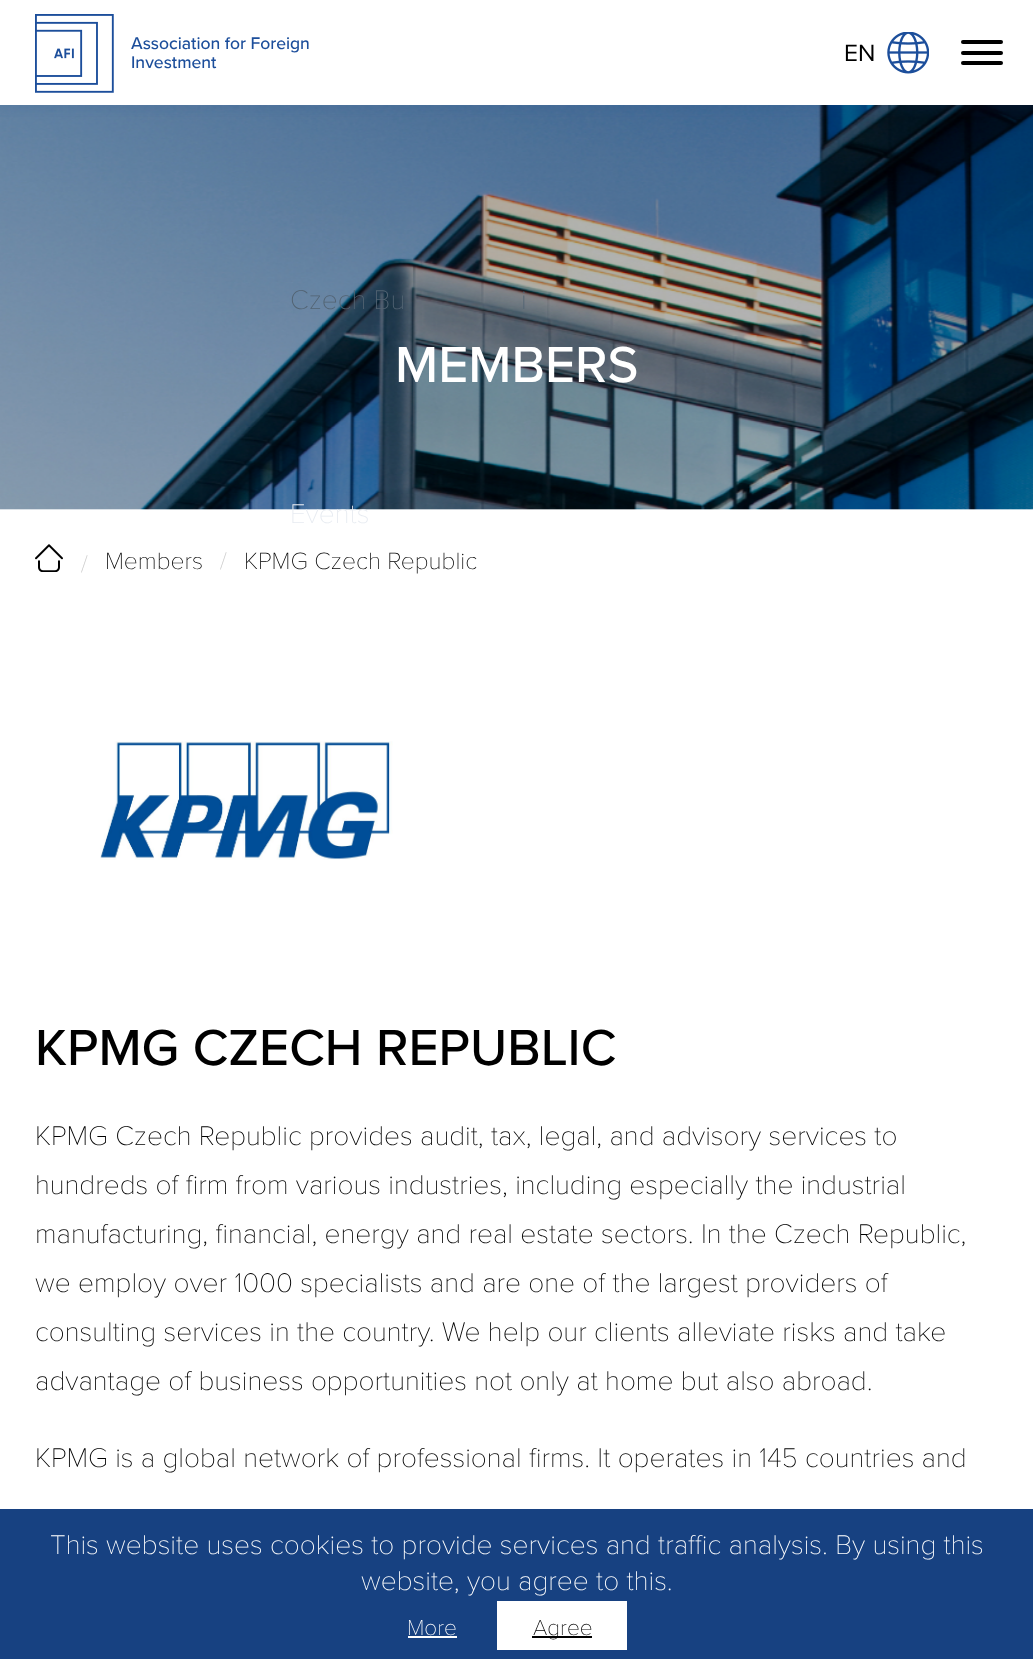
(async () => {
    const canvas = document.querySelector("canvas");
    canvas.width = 1033;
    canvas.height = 1659;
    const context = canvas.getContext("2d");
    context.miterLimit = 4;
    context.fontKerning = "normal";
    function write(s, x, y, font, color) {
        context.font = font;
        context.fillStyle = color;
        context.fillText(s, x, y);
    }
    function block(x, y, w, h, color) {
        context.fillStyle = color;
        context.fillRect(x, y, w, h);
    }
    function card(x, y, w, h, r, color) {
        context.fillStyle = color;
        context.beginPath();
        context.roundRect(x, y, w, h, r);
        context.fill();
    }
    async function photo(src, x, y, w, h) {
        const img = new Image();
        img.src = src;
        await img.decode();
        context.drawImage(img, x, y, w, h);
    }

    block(0, 0, 1033, 1659, "rgb(255, 255, 255)");
    await photo("media/3.png", 0, 105, 1033, 405);
    context.save();
    context.beginPath();
    context.rect(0, 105, 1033, 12);
    context.clip();
    context.fillStyle = "rgba(28, 78, 155, 0.2)";
    context.filter = "blur(9px)";
    context.beginPath();
    context.rect(0, 0, 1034, 105);
    context.fill();
    context.filter = "none";
    context.restore();
    await photo("media/1.png", 35, 14, 79, 79);
    write("Association for Foreign", 131, 49, "500 17.5px Proxima Nova", "rgb(28, 78, 155)");
    write("Investment", 131, 68, "500 17.5px Proxima Nova", "rgb(28, 78, 155)");
    write("EN", 844, 61, "24.5px Proxima Nova", "rgb(0, 0, 0)");
    await photo("media/2.png", 887, 32, 42, 42);
    card(961, 40, 42, 4, 2, "rgb(0, 0, 0)");
    card(961, 51, 42, 4, 2, "rgb(0, 0, 0)");
    card(961, 61, 42, 4, 2, "rgb(0, 0, 0)");
    write("Czech Bu", 290, 309, "100 28px Proxima Nova", "rgb(82, 99, 114)");
    write("i", 521, 309, "100 28px Proxima Nova", "rgb(82, 99, 114)");
    write("Events", 290, 523, "100 28px Proxima Nova", "rgb(231, 235, 241)");
    write("MEMBERS", 395, 382, "500 52.5px Proxima Nova", "rgb(255, 255, 255)");
    await photo("media/4.png", 35, 544, 28, 28);
    write("/", 81, 572, "100 24.5px Proxima Nova", "rgb(204, 204, 204)");
    write("Members", 105, 569, "100 24.5px Proxima Nova", "rgb(0, 0, 0)");
    write("/", 220, 569, "100 24.5px Proxima Nova", "rgb(204, 204, 204)");
    write("KPMG Czech Republic", 244, 569, "100 24.5px Proxima Nova", "rgb(0, 0, 0)");
    await photo("media/5.png", 100, 741, 293, 119);
    write("KPMG CZECH REPUBLIC", 35, 1065, "500 52.5px Proxima Nova", "rgb(0, 0, 0)");
    write("KPMG Czech Republic provides audit, tax, legal, and advisory services to", 35, 1145, "100 28px Proxima Nova", "rgb(0, 0, 0)");
    write("hundreds of firm from various industries, including especially the industrial", 35, 1194, "100 28px Proxima Nova", "rgb(0, 0, 0)");
    write("manufacturing, financial, energy and real estate sectors. In the Czech Republic,", 35, 1243, "100 28px Proxima Nova", "rgb(0, 0, 0)");
    write("we employ over 1000 specialists and are one of the largest providers of", 35, 1292, "100 28px Proxima Nova", "rgb(0, 0, 0)");
    write("consulting services in the country. We help our clients alleviate risks and take", 35, 1341, "100 28px Proxima Nova", "rgb(0, 0, 0)");
    write("advantage of business opportunities not only at home but also abroad.", 35, 1390, "100 28px Proxima Nova", "rgb(0, 0, 0)");
    write("KPMG is a global network of professional firms. It operates in 145 countries and", 35, 1467, "100 28px Proxima Nova", "rgb(0, 0, 0)");
    block(0, 1509, 1033, 150, "rgb(23, 65, 129)");
    write("This website uses cookies to provide services and traffic analysis. By using this", 50, 1554, "100 28px Proxima Nova", "rgb(255, 255, 255)");
    write("website, you agree to this.", 361, 1590, "100 28px Proxima Nova", "rgb(255, 255, 255)");
    write("More", 407, 1635, "100 22.5px Proxima Nova", "rgb(255, 255, 255)");
    block(408, 1636, 49, 2, "rgb(255, 255, 255)");
    block(497, 1601, 130, 49, "rgb(255, 255, 255)");
    block(532, 1636, 60, 2, "rgb(0, 0, 0)");
    write("Agree", 533, 1635, "100 22.5px Proxima Nova", "rgb(0, 0, 0)");
})();
